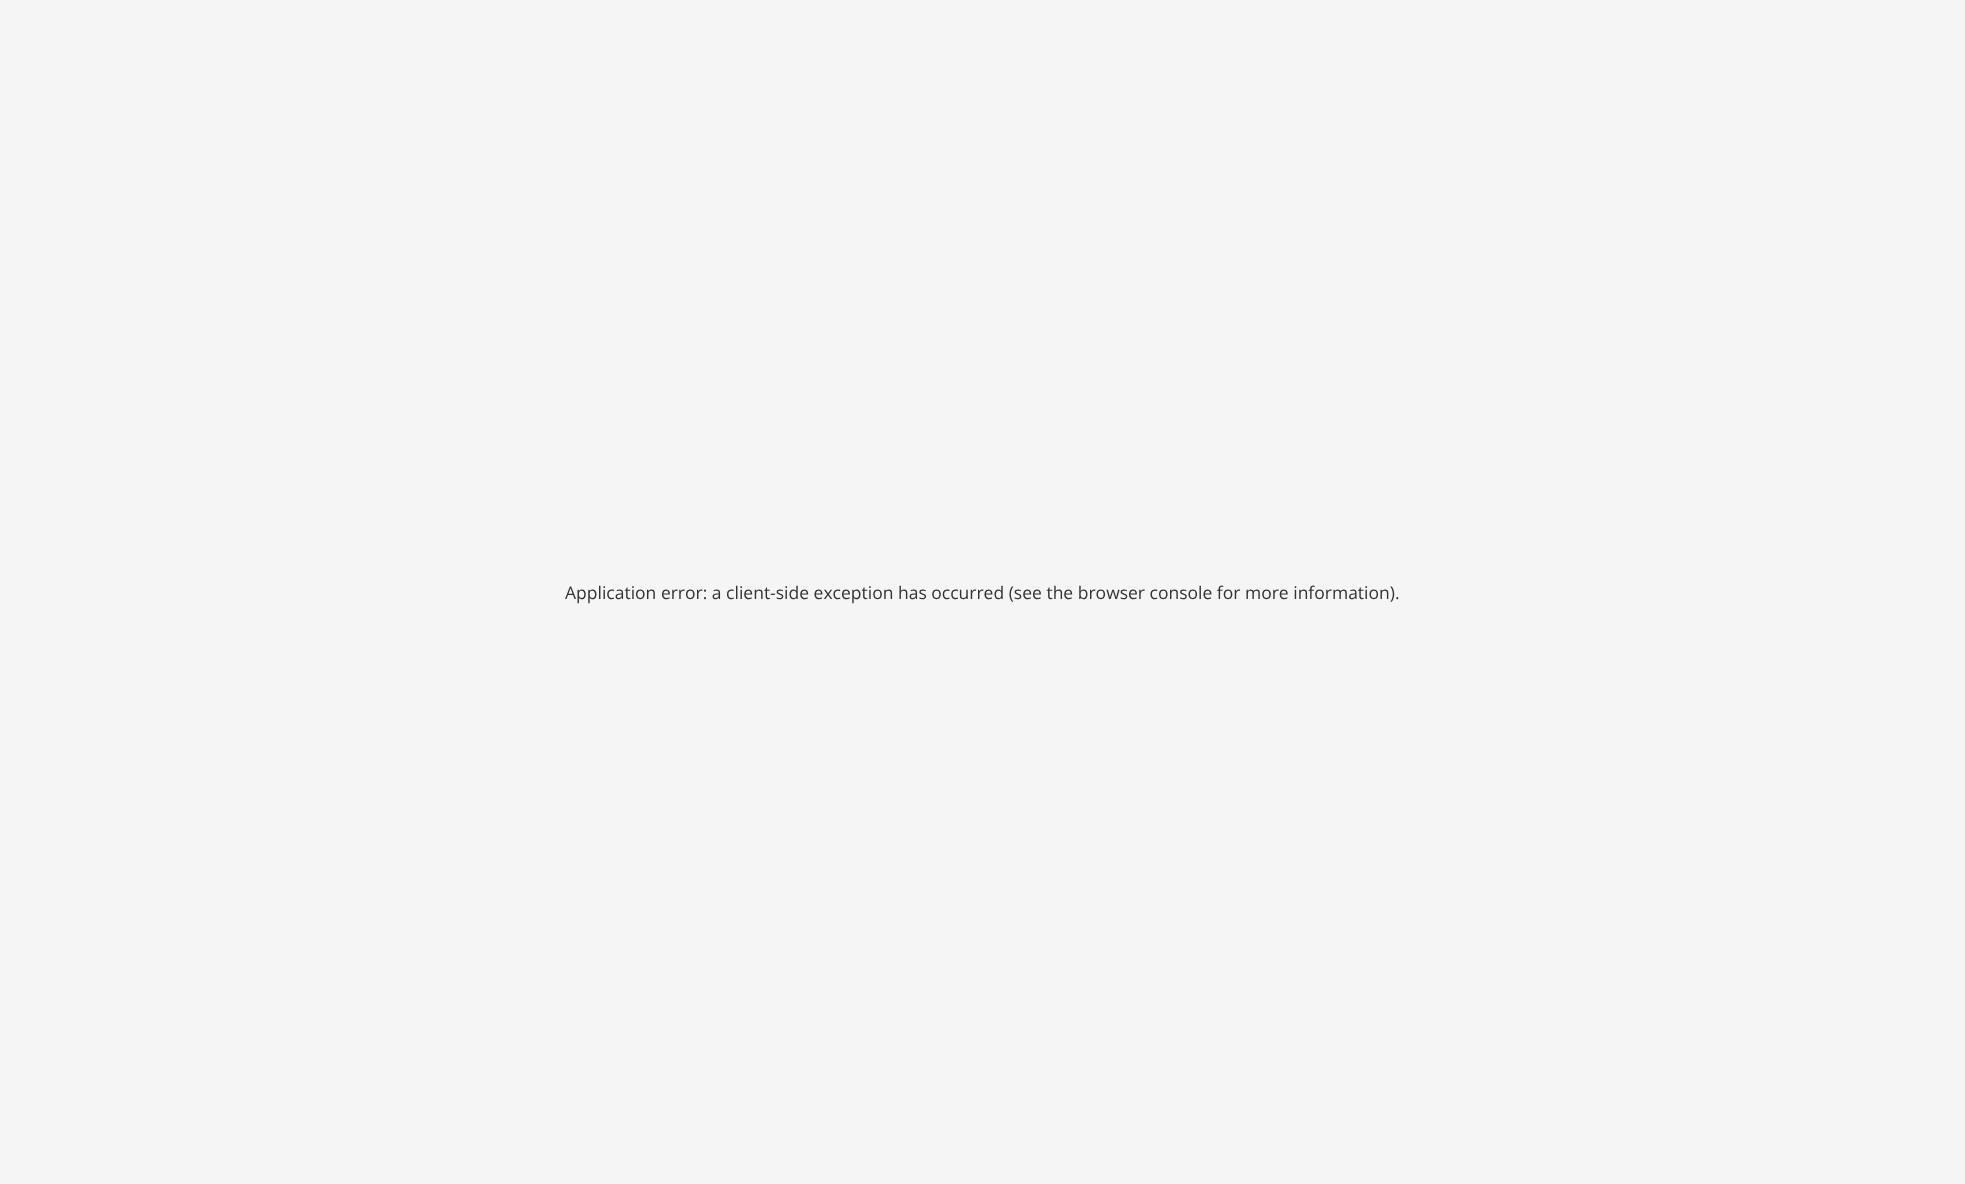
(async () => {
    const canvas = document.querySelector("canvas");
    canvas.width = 1965;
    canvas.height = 1184;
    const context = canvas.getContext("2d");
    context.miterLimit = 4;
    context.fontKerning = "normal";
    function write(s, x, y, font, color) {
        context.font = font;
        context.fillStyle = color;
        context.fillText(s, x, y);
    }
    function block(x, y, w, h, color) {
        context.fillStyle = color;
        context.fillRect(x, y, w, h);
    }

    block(0, 0, 1965, 1184, "rgb(245, 245, 245)");
    write("Application error: a client-side exception has occurred (see the browser console for more information).", 565, 599, "17.5px Open Sans", "rgb(51, 51, 51)");
})();
